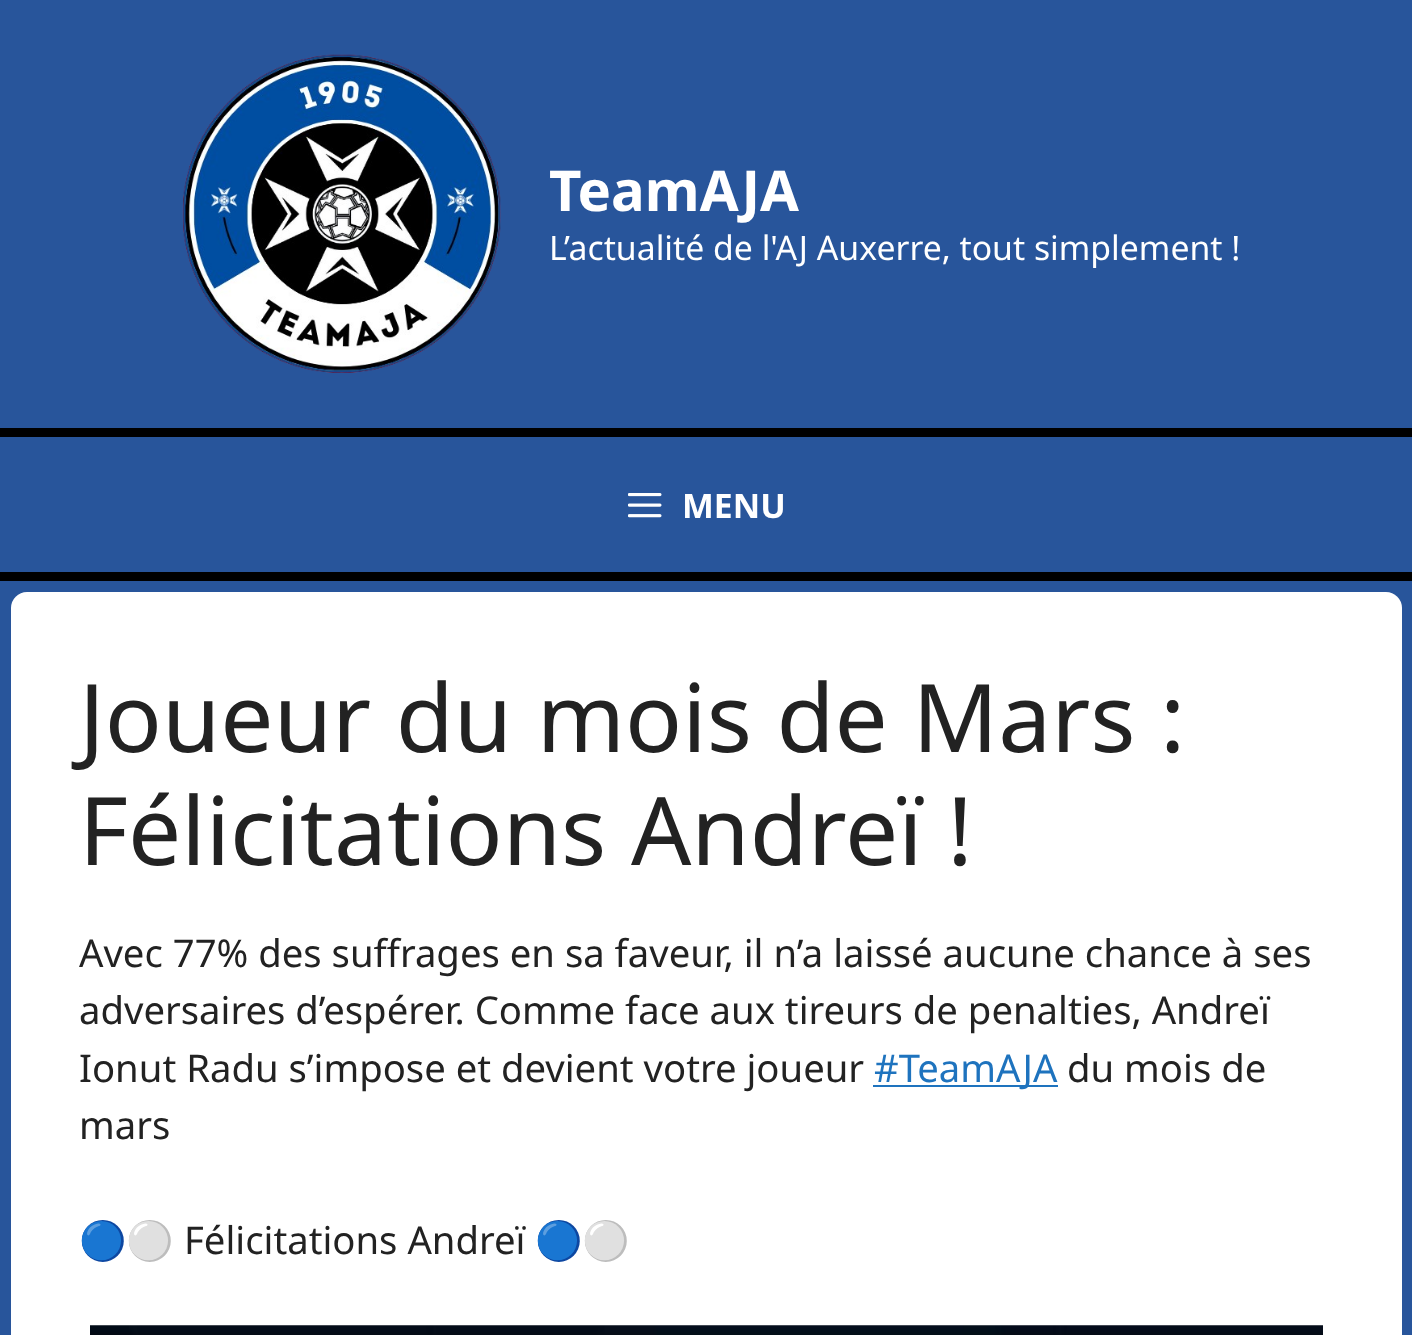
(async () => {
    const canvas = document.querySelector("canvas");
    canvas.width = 1412;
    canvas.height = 1335;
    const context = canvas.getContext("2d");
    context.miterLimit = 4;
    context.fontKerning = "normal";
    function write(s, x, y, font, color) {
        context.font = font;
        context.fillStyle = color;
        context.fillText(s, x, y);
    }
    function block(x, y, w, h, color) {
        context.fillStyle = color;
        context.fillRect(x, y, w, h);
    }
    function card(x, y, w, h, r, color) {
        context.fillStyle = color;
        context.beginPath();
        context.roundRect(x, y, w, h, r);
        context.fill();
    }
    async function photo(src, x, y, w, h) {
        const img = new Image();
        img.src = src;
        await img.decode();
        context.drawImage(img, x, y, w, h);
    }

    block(0, 0, 1412, 1335, "rgb(40, 85, 155)");
    await photo("media/1.png", 182, 54, 319, 319);
    write("TeamAJA", 549, 211, "bold 56.25px Noto Sans", "rgb(255, 255, 255)");
    write("L’actualité de l'AJ Auxerre, tout simplement !", 549, 260, "33.75px Noto Sans", "rgb(255, 255, 255)");
    block(0, 428, 1412, 9, "rgb(0, 0, 0)");
    block(0, 572, 1412, 9, "rgb(0, 0, 0)");
    await photo("media/2.png", 628, 493, 34, 25);
    write("MENU", 682, 518, "bold 33.75px Noto Sans", "rgb(255, 255, 255)");
    card(11, 592, 1391, 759, 16, "rgb(255, 255, 255)");
    write("Joueur du mois de Mars :", 79, 752, "94.5px Noto Sans", "rgb(34, 34, 34)");
    write("Félicitations Andreï !", 79, 865, "94.5px Noto Sans", "rgb(34, 34, 34)");
    write("Avec 77% des suffrages en sa faveur, il n’a laissé aucune chance à ses", 79, 967, "38.25px Noto Sans", "rgb(34, 34, 34)");
    write("adversaires d’espérer. Comme face aux tireurs de penalties, Andreï", 79, 1024, "38.25px Noto Sans", "rgb(34, 34, 34)");
    write("Ionut Radu s’impose et devient votre joueur", 79, 1082, "38.25px Noto Sans", "rgb(34, 34, 34)");
    block(873, 1085, 185, 2, "rgb(30, 115, 190)");
    write("#TeamAJA", 874, 1082, "38.25px Noto Sans", "rgb(30, 115, 190)");
    write("du mois de", 1067, 1082, "38.25px Noto Sans", "rgb(34, 34, 34)");
    write("mars", 79, 1139, "38.25px Noto Sans", "rgb(34, 34, 34)");
    write("🔵⚪️", 79, 1254, "38.25px Noto Color Emoji", "rgb(34, 34, 34)");
    write("Félicitations Andreï", 184, 1254, "38.25px Noto Sans", "rgb(34, 34, 34)");
    write("🔵⚪️", 535, 1254, "38.25px Noto Color Emoji", "rgb(34, 34, 34)");
    await photo("media/3.png", 90, 1325, 1233, 10);
})();
